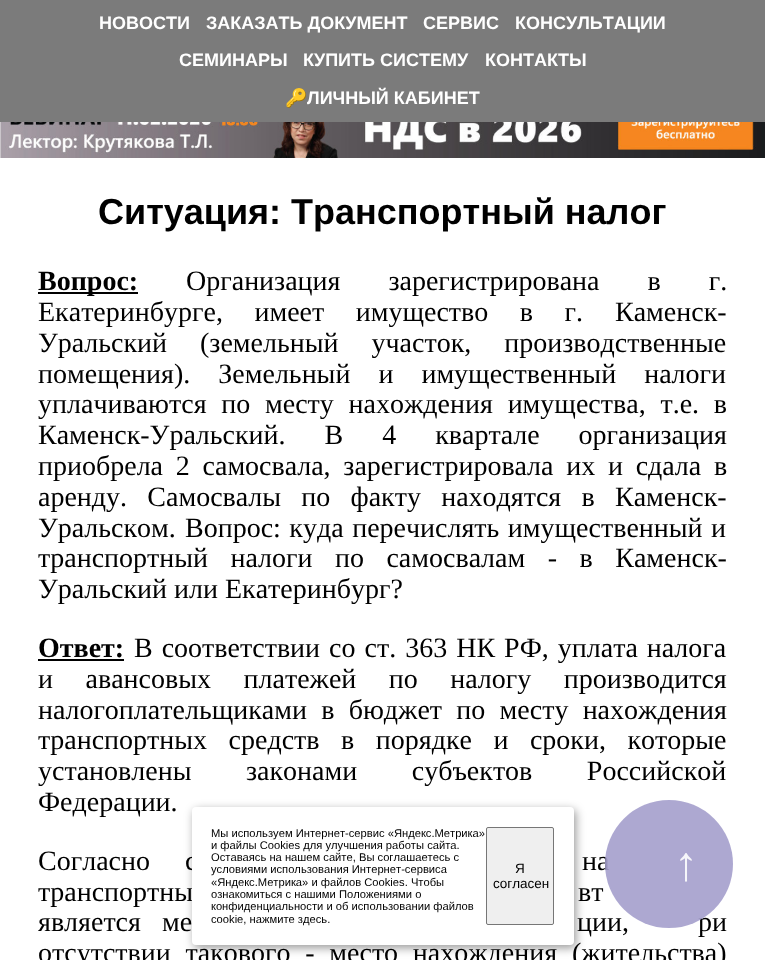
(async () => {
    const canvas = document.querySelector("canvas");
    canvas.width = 765;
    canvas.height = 960;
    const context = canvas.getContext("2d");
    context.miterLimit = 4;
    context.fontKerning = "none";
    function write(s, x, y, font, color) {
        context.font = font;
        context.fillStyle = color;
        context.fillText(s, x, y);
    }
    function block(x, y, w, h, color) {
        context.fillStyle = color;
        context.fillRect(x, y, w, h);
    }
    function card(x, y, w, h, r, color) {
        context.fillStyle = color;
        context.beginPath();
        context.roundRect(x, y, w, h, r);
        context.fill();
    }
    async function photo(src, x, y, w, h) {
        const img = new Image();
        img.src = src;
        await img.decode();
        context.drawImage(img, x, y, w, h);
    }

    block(0, 0, 765, 960, "rgb(255, 255, 255)");
    block(0, 0, 765, 122, "rgb(123, 123, 123)");
    write("НОВОСТИ", 99, 29, "bold 18px Liberation Sans", "rgb(255, 255, 255)");
    write("ЗАКАЗАТЬ ДОКУМЕНТ", 206, 29, "bold 18px Liberation Sans", "rgb(255, 255, 255)");
    write("СЕРВИС", 423, 29, "bold 18px Liberation Sans", "rgb(255, 255, 255)");
    write("КОНСУЛЬТАЦИИ", 515, 29, "bold 18px Liberation Sans", "rgb(255, 255, 255)");
    write("СЕМИНАРЫ", 179, 66, "bold 18px Liberation Sans", "rgb(255, 255, 255)");
    write("КУПИТЬ СИСТЕМУ", 303, 66, "bold 18px Liberation Sans", "rgb(255, 255, 255)");
    write("КОНТАКТЫ", 485, 66, "bold 18px Liberation Sans", "rgb(255, 255, 255)");
    write("🔑", 285, 104, "bold 18px Noto Color Emoji", "rgb(255, 255, 255)");
    write("ЛИЧНЫЙ КАБИНЕТ", 307, 104, "bold 18px Liberation Sans", "rgb(255, 255, 255)");
    await photo("media/1.png", 0, 122, 765, 36);
    write("Ситуация: Транспортный налог", 98, 224, "bold 36px Liberation Sans", "rgb(0, 0, 0)");
    block(38, 292, 100, 2, "rgb(0, 0, 0)");
    write("Вопрос:", 38, 290, "bold 28px Liberation Serif", "rgb(0, 0, 0)");
    context.wordSpacing = "41px";
    write("Организация зарегистрирована в г.", 186, 290, "28px Liberation Serif", "rgb(0, 0, 0)");
    context.wordSpacing = "24.5px";
    write("Екатеринбурге, имеет имущество в г.", 38, 321, "28px Liberation Serif", "rgb(0, 0, 0)");
    write("Каменск-", 615, 321, "28px Liberation Serif", "rgb(0, 0, 0)");
    context.wordSpacing = "26px";
    write("Уральский (земельный участок, производственные", 38, 352, "28px Liberation Serif", "rgb(0, 0, 0)");
    context.wordSpacing = "21px";
    write("помещения). Земельный и имущественный налоги", 38, 383, "28px Liberation Serif", "rgb(0, 0, 0)");
    context.wordSpacing = "7.75px";
    write("уплачиваются по месту нахождения имущества, т.е. в", 38, 413, "28px Liberation Serif", "rgb(0, 0, 0)");
    context.wordSpacing = "32px";
    write("Каменск-Уральский. В 4 квартале организация", 38, 444, "28px Liberation Serif", "rgb(0, 0, 0)");
    context.wordSpacing = "5.75px";
    write("приобрела 2 самосвала, зарегистрировала их и сдала в", 38, 475, "28px Liberation Serif", "rgb(0, 0, 0)");
    context.wordSpacing = "13.25px";
    write("аренду. Самосвалы по факту находятся в Каменск-", 38, 506, "28px Liberation Serif", "rgb(0, 0, 0)");
    context.wordSpacing = "0px";
    write("Уральском.", 38, 537, "28px Liberation Serif", "rgb(0, 0, 0)");
    context.wordSpacing = "1.5px";
    write("Вопрос: куда перечислять имущественный и", 185, 537, "28px Liberation Serif", "rgb(0, 0, 0)");
    context.wordSpacing = "15.5px";
    write("транспортный налоги по самосвалам - в Каменск-", 38, 567, "28px Liberation Serif", "rgb(0, 0, 0)");
    context.wordSpacing = "0px";
    write("Уральский или Екатеринбург?", 38, 598, "28px Liberation Serif", "rgb(0, 0, 0)");
    write("Ответ:", 38, 657, "bold 28px Liberation Serif", "rgb(0, 0, 0)");
    block(38, 659, 86, 2, "rgb(0, 0, 0)");
    context.wordSpacing = "2px";
    write("В соответствии со ст. 363 НК РФ, уплата налога", 134, 657, "28px Liberation Serif", "rgb(0, 0, 0)");
    context.wordSpacing = "25.5px";
    write("и авансовых платежей по налогу производится", 38, 688, "28px Liberation Serif", "rgb(0, 0, 0)");
    context.wordSpacing = "7.25px";
    write("налогоплательщиками в бюджет по месту нахождения", 38, 719, "28px Liberation Serif", "rgb(0, 0, 0)");
    context.wordSpacing = "14.5px";
    write("транспортных средств в порядке и сроки, которые", 38, 749, "28px Liberation Serif", "rgb(0, 0, 0)");
    context.wordSpacing = "47.5px";
    write("установлены законами субъектов Российской", 38, 780, "28px Liberation Serif", "rgb(0, 0, 0)");
    context.wordSpacing = "0px";
    write("Федерации.", 38, 811, "28px Liberation Serif", "rgb(0, 0, 0)");
    context.wordSpacing = "28px";
    write("Согласно с", 38, 870, "28px Liberation Serif", "rgb(0, 0, 0)");
    write("на", 582, 870, "28px Liberation Serif", "rgb(0, 0, 0)");
    context.wordSpacing = "20px";
    write("транспортны", 38, 901, "28px Liberation Serif", "rgb(0, 0, 0)");
    write("вт", 578, 901, "28px Liberation Serif", "rgb(0, 0, 0)");
    context.wordSpacing = "14px";
    write("является ме", 38, 931, "28px Liberation Serif", "rgb(0, 0, 0)");
    write("ции,", 577, 931, "28px Liberation Serif", "rgb(0, 0, 0)");
    write("ри", 698, 931, "28px Liberation Serif", "rgb(0, 0, 0)");
    context.wordSpacing = "7.75px";
    write("отсутствии такового - место нахождения (жительства)", 38, 962, "28px Liberation Serif", "rgb(0, 0, 0)");
    context.fillStyle = "rgba(0, 0, 0, 0.4)";
    context.filter = "blur(5px)";
    context.beginPath();
    context.roundRect(194, 810, 382, 138, 4);
    context.fill();
    context.filter = "none";
    card(192, 807, 382, 138, 4, "rgb(255, 255, 255)");
    context.wordSpacing = "0px";
    write("Мы используем Интернет-сервис «Яндекс.Метрика»", 211, 837, "11.2px Liberation Sans", "rgb(0, 0, 0)");
    write("и файлы Cookies для улучшения работы сайта.", 211, 849, "11.2px Liberation Sans", "rgb(0, 0, 0)");
    write("Оставаясь на нашем сайте, Вы соглашаетесь с", 211, 861, "11.2px Liberation Sans", "rgb(0, 0, 0)");
    write("условиями использования Интернет-сервиса", 211, 873, "11.2px Liberation Sans", "rgb(0, 0, 0)");
    write("«Яндекс.Метрика» и файлов Cookies. Чтобы", 211, 886, "11.2px Liberation Sans", "rgb(0, 0, 0)");
    write("ознакомиться с нашими Положениями о", 211, 898, "11.2px Liberation Sans", "rgb(0, 0, 0)");
    write("конфиденциальности и об использовании файлов", 211, 910, "11.2px Liberation Sans", "rgb(0, 0, 0)");
    write("cookie, нажмите здесь.", 211, 923, "11.2px Liberation Sans", "rgb(0, 0, 0)");
    context.fillStyle = "rgb(239, 239, 239)";
    context.beginPath();
    context.roundRect(486.5, 827.5, 67, 97, 1.5);
    context.fill();
    context.strokeStyle = "rgb(118, 118, 118)";
    context.stroke();
    write("Я", 515, 873, "13.5px Liberation Sans", "rgb(0, 0, 0)");
    write("согласен", 493, 888, "13.5px Liberation Sans", "rgb(0, 0, 0)");
    context.fillStyle = "rgba(164, 159, 204, 0.9)";
    context.beginPath();
    context.arc(669, 864, 64, 0, Math.PI * 2);
    context.fill();
    write("↑", 674, 880, "bold 48px Liberation Sans", "rgb(246, 246, 250)");
})();
